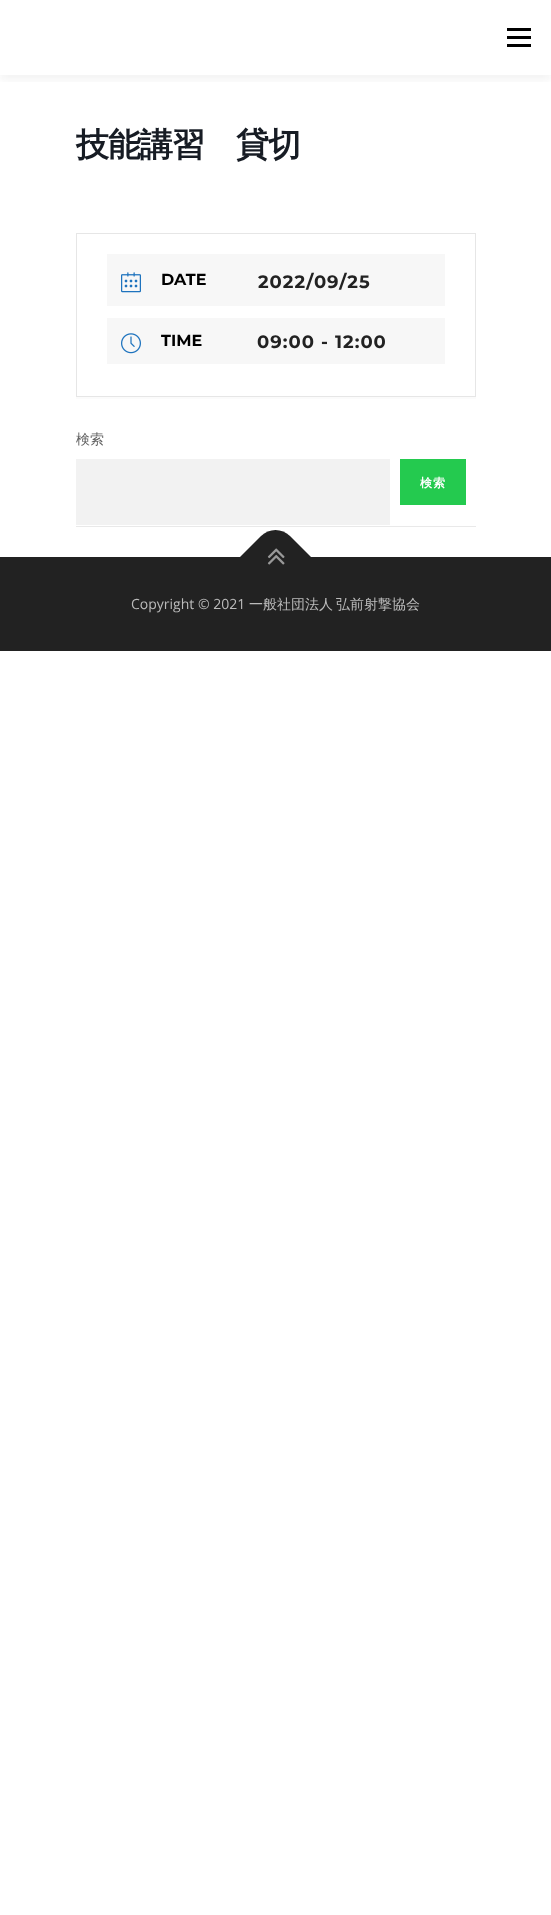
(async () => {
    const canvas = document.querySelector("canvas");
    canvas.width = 551;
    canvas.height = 1915;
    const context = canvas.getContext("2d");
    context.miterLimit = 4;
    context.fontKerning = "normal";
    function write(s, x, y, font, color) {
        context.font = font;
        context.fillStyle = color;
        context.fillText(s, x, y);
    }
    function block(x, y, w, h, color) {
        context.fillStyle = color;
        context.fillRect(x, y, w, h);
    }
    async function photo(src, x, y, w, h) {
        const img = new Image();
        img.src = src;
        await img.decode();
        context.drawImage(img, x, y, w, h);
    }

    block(0, 0, 551, 1915, "rgb(255, 255, 255)");
    context.save();
    context.beginPath();
    context.rect(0, 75, 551, 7);
    context.clip();
    context.fillStyle = "rgba(50, 50, 50, 0.06)";
    context.filter = "blur(5px)";
    context.beginPath();
    context.rect(0, 5, 551, 75);
    context.fill();
    context.filter = "none";
    context.restore();
    block(507, 36, 24, 3, "rgb(0, 0, 0)");
    block(507, 28, 24, 3, "rgb(0, 0, 0)");
    block(507, 44, 24, 3, "rgb(0, 0, 0)");
    context.letterSpacing = "-1px";
    write("技能講習　貸切", 76, 156, "bold 33px WenQuanYi Zen Hei", "rgb(23, 28, 36)");
    block(76, 397, 400, 2, "rgb(251, 251, 251)");
    context.strokeStyle = "rgb(230, 230, 230)";
    context.strokeRect(76.5, 233.5, 399, 163);
    block(107, 254, 338, 52, "rgb(247, 247, 247)");
    await photo("media/1.png", 121, 272, 20, 21);
    context.letterSpacing = "0px";
    write("DATE", 161, 285, "bold 16px Montserrat", "rgb(0, 0, 0)");
    context.letterSpacing = "1px";
    write("2022/09/25", 258, 288, "bold 18px Montserrat", "rgb(34, 34, 34)");
    block(107, 318, 338, 46, "rgb(247, 247, 247)");
    await photo("media/2.png", 121, 333, 20, 21);
    context.letterSpacing = "0px";
    write("TIME", 161, 346, "bold 16px Montserrat", "rgb(0, 0, 0)");
    context.letterSpacing = "1px";
    write("09:00 - 12:00", 257, 348, "bold 18px Montserrat", "rgb(34, 34, 34)");
    context.letterSpacing = "0px";
    write("検索", 76, 444, "500 14px WenQuanYi Zen Hei", "rgb(98, 98, 98)");
    block(76, 459, 314, 66, "rgb(242, 242, 242)");
    block(400, 459, 66, 46, "rgb(36, 202, 79)");
    context.letterSpacing = "1px";
    write("検索", 420, 487, "bold 12px WenQuanYi Zen Hei", "rgb(255, 255, 255)");
    block(76, 526, 400, 1, "rgb(233, 233, 233)");
    block(0, 557, 551, 94, "rgb(34, 34, 34)");
    context.beginPath();
    context.moveTo(240, 557);
    context.lineTo(261, 536);
    context.bezierCurveTo(269, 528, 282, 528, 290, 536);
    context.lineTo(311, 557);
    context.lineTo(276, 593);
    context.closePath();
    context.fill();
    await photo("media/3.png", 267, 548, 18, 17);
    context.letterSpacing = "0px";
    write("Copyright © 2021", 131, 609, "14px Open Sans", "rgb(187, 187, 187)");
    write("一般社団法人", 249, 609, "500 14px WenQuanYi Zen Hei", "rgb(187, 187, 187)");
    write("弘前射撃協会", 336, 609, "500 14px WenQuanYi Zen Hei", "rgb(187, 187, 187)");
})();
